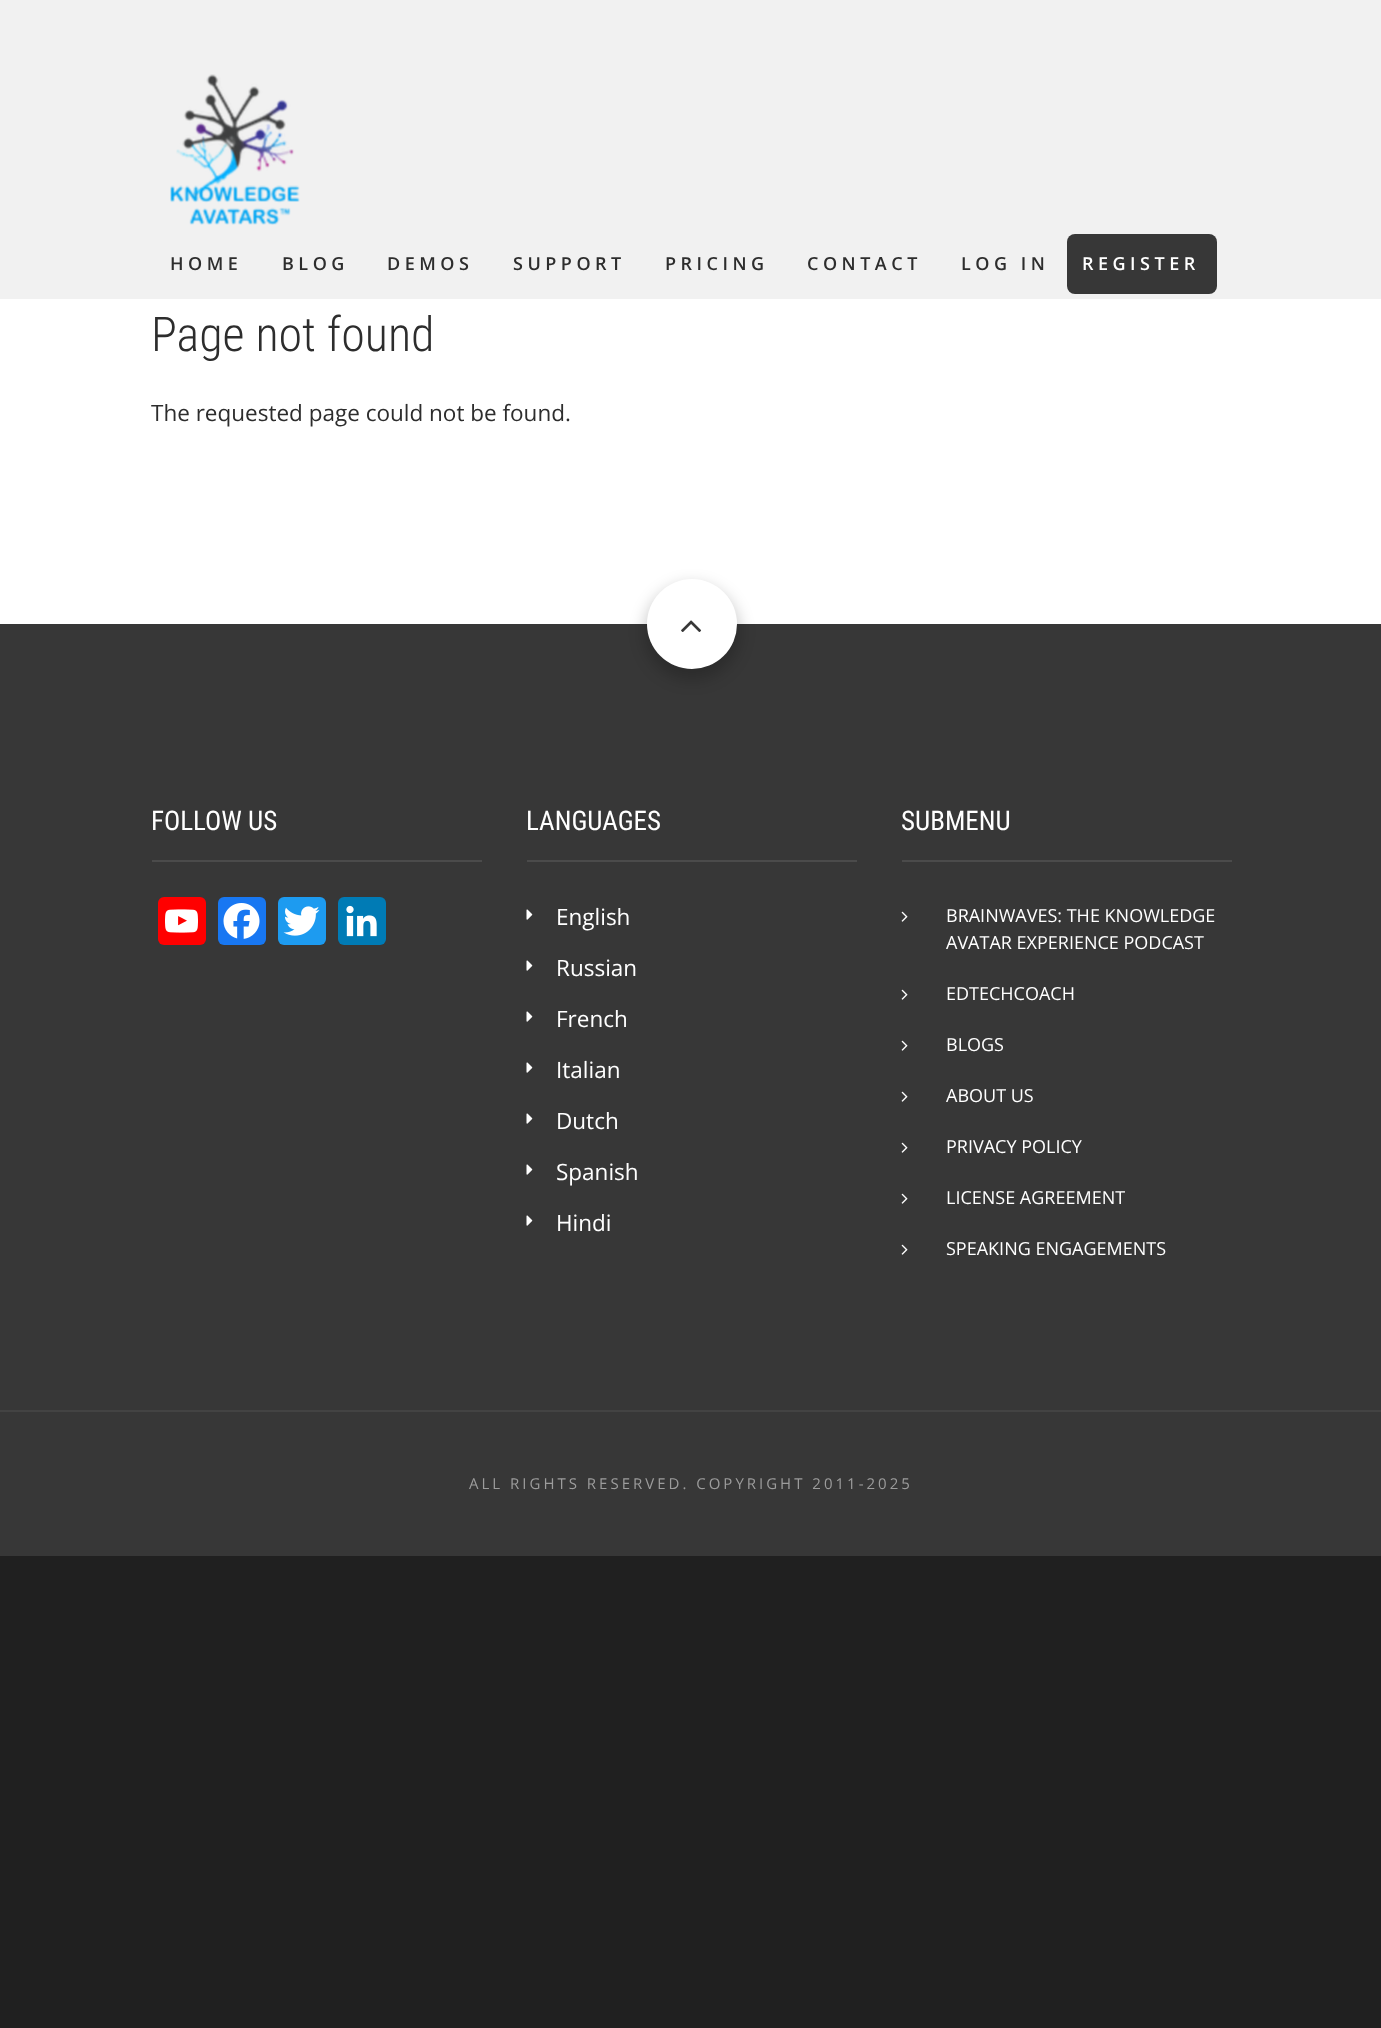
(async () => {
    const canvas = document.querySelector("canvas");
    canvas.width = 1381;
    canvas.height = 2028;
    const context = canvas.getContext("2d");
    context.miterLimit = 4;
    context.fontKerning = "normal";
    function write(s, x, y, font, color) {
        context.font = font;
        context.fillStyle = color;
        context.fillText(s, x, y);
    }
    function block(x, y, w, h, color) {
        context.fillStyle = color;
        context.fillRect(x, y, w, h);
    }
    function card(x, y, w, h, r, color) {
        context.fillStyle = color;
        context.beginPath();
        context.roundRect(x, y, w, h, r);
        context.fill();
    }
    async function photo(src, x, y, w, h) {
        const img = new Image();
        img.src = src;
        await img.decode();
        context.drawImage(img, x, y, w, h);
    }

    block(0, 0, 1381, 2028, "rgb(32, 32, 32)");
    block(0, 0, 1381, 299, "rgb(241, 241, 241)");
    await photo("media/1.png", 170, 74, 130, 151);
    context.letterSpacing = "4.5px";
    write("HOME", 170, 270, "600 18px Open Sans", "rgb(45, 45, 45)");
    write("BLOG", 282, 270, "600 18px Open Sans", "rgb(45, 45, 45)");
    write("DEMOS", 387, 270, "600 18px Open Sans", "rgb(45, 45, 45)");
    write("SUPPORT", 513, 270, "600 18px Open Sans", "rgb(45, 45, 45)");
    write("PRICING", 665, 270, "600 18px Open Sans", "rgb(45, 45, 45)");
    write("CONTACT", 807, 270, "600 18px Open Sans", "rgb(45, 45, 45)");
    write("LOG IN", 961, 270, "600 18px Open Sans", "rgb(45, 45, 45)");
    card(1067, 234, 150, 60, 8, "rgb(55, 55, 55)");
    write("REGISTER", 1082, 270, "600 18px Open Sans", "rgb(255, 255, 255)");
    block(0, 299, 1381, 325, "rgb(255, 255, 255)");
    context.letterSpacing = "0px";
    write("Page not found", 151, 351, "300 48px Roboto Condensed", "rgb(45, 45, 45)");
    write("The requested page could not be found.", 151, 421, "22.5px Open Sans", "rgb(45, 45, 45)");
    block(0, 624, 1381, 786, "rgb(55, 55, 55)");
    context.fillStyle = "rgba(0, 0, 0, 0.2)";
    context.filter = "blur(7.5px)";
    context.beginPath();
    context.roundRect(644, 584, 96, 96, 48);
    context.fill();
    context.filter = "none";
    context.fillStyle = "rgb(255, 255, 255)";
    context.beginPath();
    context.arc(692, 624, 45, 0, Math.PI * 2);
    context.fill();
    await photo("media/2.png", 681, 620, 21, 12);
    block(152, 860, 330, 2, "rgb(75, 75, 75)");
    write("FOLLOW US", 151, 830, "27px Roboto Condensed", "rgb(255, 255, 255)");
    card(158, 897, 48, 48, 6, "rgb(255, 0, 0)");
    await photo("media/3.png", 165, 909, 33, 24);
    card(218, 897, 48, 48, 6, "rgb(24, 119, 242)");
    await photo("media/4.png", 223, 903, 37, 36);
    card(278, 897, 48, 48, 6, "rgb(29, 155, 240)");
    await photo("media/5.png", 283, 906, 37, 30);
    card(338, 897, 48, 48, 6, "rgb(0, 123, 181)");
    await photo("media/6.png", 346, 905, 31, 32);
    block(527, 860, 330, 2, "rgb(75, 75, 75)");
    write("LANGUAGES", 526, 830, "27px Roboto Condensed", "rgb(255, 255, 255)");
    await photo("media/7.png", 526, 909, 7, 11);
    write("English", 556, 925, "22.5px Open Sans", "rgb(255, 255, 255)");
    await photo("media/7.png", 526, 960, 7, 11);
    write("Russian", 556, 976, "22.5px Open Sans", "rgb(255, 255, 255)");
    await photo("media/7.png", 526, 1011, 7, 11);
    write("French", 556, 1027, "22.5px Open Sans", "rgb(255, 255, 255)");
    await photo("media/7.png", 526, 1062, 7, 11);
    write("Italian", 556, 1078, "22.5px Open Sans", "rgb(255, 255, 255)");
    await photo("media/7.png", 526, 1113, 7, 11);
    write("Dutch", 556, 1129, "22.5px Open Sans", "rgb(255, 255, 255)");
    await photo("media/7.png", 526, 1164, 7, 11);
    write("Spanish", 556, 1180, "22.5px Open Sans", "rgb(255, 255, 255)");
    await photo("media/7.png", 526, 1215, 7, 11);
    write("Hindi", 556, 1231, "22.5px Open Sans", "rgb(255, 255, 255)");
    block(902, 860, 330, 2, "rgb(75, 75, 75)");
    write("SUBMENU", 901, 830, "27px Roboto Condensed", "rgb(255, 255, 255)");
    await photo("media/8.png", 901, 911, 7, 11);
    write("BRAINWAVES: THE KNOWLEDGE", 946, 922, "18px Open Sans", "rgb(255, 255, 255)");
    write("AVATAR EXPERIENCE PODCAST", 946, 949, "18px Open Sans", "rgb(255, 255, 255)");
    await photo("media/8.png", 901, 989, 7, 11);
    write("EDTECHCOACH", 946, 1000, "18px Open Sans", "rgb(255, 255, 255)");
    await photo("media/8.png", 901, 1040, 7, 11);
    write("BLOGS", 946, 1051, "18px Open Sans", "rgb(255, 255, 255)");
    await photo("media/8.png", 901, 1091, 7, 11);
    write("ABOUT US", 946, 1102, "18px Open Sans", "rgb(255, 255, 255)");
    await photo("media/8.png", 901, 1142, 7, 11);
    write("PRIVACY POLICY", 946, 1153, "18px Open Sans", "rgb(255, 255, 255)");
    await photo("media/8.png", 901, 1193, 7, 11);
    write("LICENSE AGREEMENT", 946, 1204, "18px Open Sans", "rgb(255, 255, 255)");
    await photo("media/8.png", 901, 1244, 7, 11);
    write("SPEAKING ENGAGEMENTS", 946, 1255, "18px Open Sans", "rgb(255, 255, 255)");
    block(0, 1412, 1381, 144, "rgb(55, 55, 55)");
    block(0, 1410, 1381, 2, "rgb(67, 67, 67)");
    context.letterSpacing = "3px";
    write("ALL RIGHTS RESERVED. COPYRIGHT 2011-2025", 469, 1489, "15px Open Sans", "rgb(156, 156, 156)");
})();
